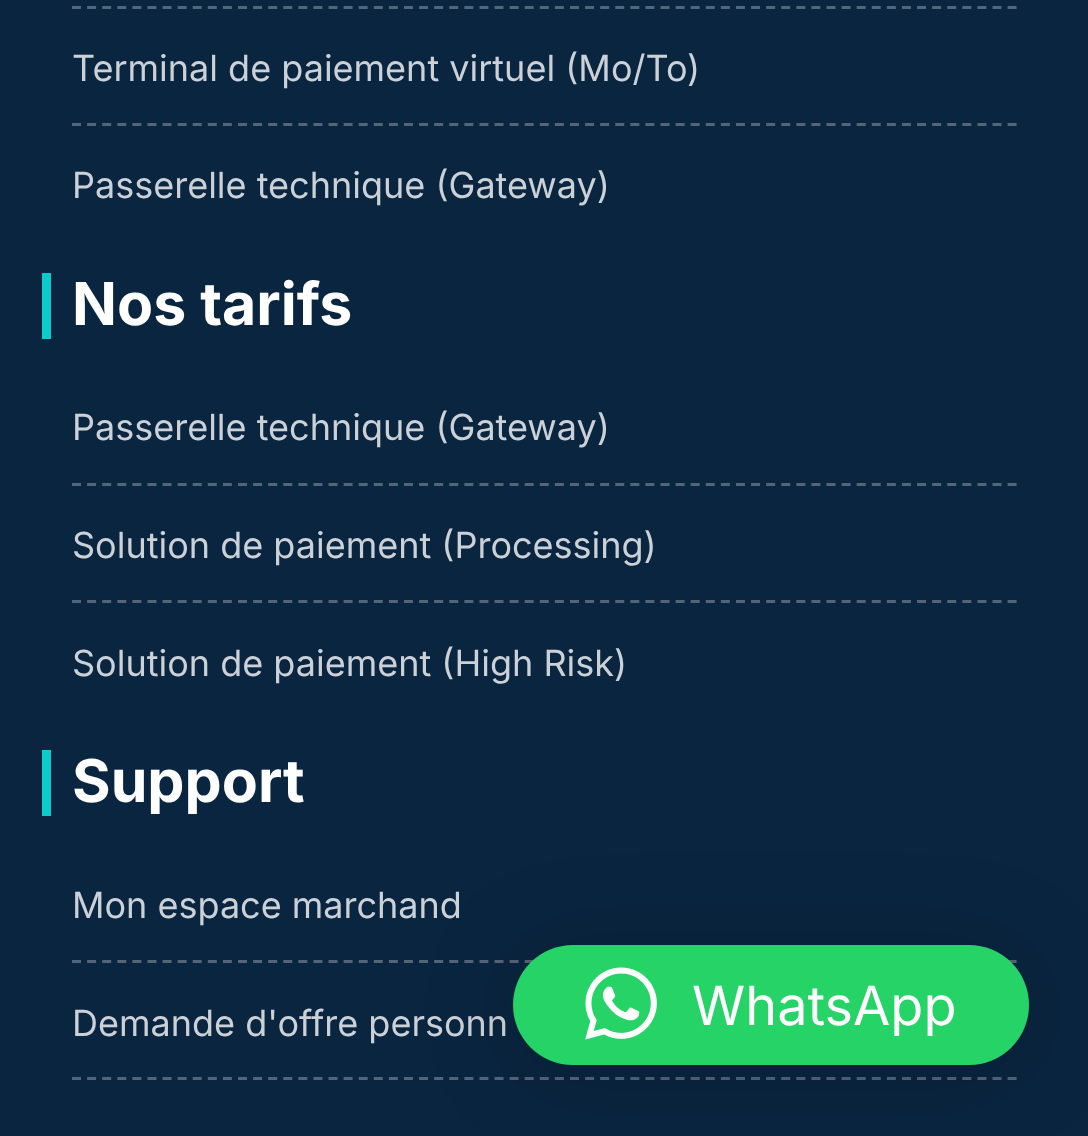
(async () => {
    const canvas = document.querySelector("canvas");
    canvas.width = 1088;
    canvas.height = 1136;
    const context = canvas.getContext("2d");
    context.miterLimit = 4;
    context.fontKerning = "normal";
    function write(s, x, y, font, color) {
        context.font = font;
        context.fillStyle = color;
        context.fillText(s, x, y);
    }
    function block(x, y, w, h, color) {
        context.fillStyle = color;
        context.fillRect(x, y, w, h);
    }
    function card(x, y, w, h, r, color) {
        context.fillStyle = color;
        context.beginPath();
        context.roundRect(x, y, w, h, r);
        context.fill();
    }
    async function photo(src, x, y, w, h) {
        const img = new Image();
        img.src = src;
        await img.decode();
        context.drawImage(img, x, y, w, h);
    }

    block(0, 0, 1088, 1136, "rgb(10, 37, 64)");
    context.beginPath();
    context.moveTo(72, 7.5);
    context.lineTo(1017, 7.5);
    context.strokeStyle = "rgb(84, 101, 119)";
    context.lineWidth = 3;
    context.setLineDash([9, 6.09]);
    context.stroke();
    write("Terminal de paiement virtuel (Mo/To)", 72, 81, "36px Inter", "rgb(204, 209, 215)");
    context.beginPath();
    context.moveTo(72, 124.5);
    context.lineTo(1017, 124.5);
    context.stroke();
    write("Passerelle technique (Gateway)", 72, 198, "36px Inter", "rgb(204, 209, 215)");
    block(42, 273, 9, 66, "rgb(11, 203, 203)");
    write("Nos tarifs", 72, 325, "bold 59px Inter", "rgb(255, 255, 255)");
    write("Passerelle technique (Gateway)", 72, 440, "36px Inter", "rgb(204, 209, 215)");
    context.beginPath();
    context.moveTo(72, 484.5);
    context.lineTo(1017, 484.5);
    context.stroke();
    write("Solution de paiement (Processing)", 72, 558, "36px Inter", "rgb(204, 209, 215)");
    context.beginPath();
    context.moveTo(72, 601.5);
    context.lineTo(1017, 601.5);
    context.stroke();
    write("Solution de paiement (High Risk)", 72, 676, "36px Inter", "rgb(204, 209, 215)");
    block(42, 750, 9, 66, "rgb(11, 203, 203)");
    write("Support", 72, 802, "bold 59px Inter", "rgb(255, 255, 255)");
    write("Mon espace marchand", 72, 918, "36px Inter", "rgb(204, 209, 215)");
    context.beginPath();
    context.moveTo(72, 961.5);
    context.lineTo(1017, 961.5);
    context.stroke();
    write("Demande d'offre personn", 72, 1036, "36px Inter", "rgb(204, 209, 215)");
    context.beginPath();
    context.moveTo(72, 1078.5);
    context.lineTo(1017, 1078.5);
    context.stroke();
    context.fillStyle = "rgba(0, 0, 0, 0.16)";
    context.filter = "blur(48px)";
    context.beginPath();
    context.roundRect(513, 951, 516, 120, 60);
    context.fill();
    context.filter = "none";
    card(513, 945, 516, 120, 60, "rgb(37, 211, 102)");
    await photo("media/1.png", 585, 967, 72, 73);
    write("WhatsApp", 692, 1025, "54px Inter", "rgb(255, 255, 255)");
})();
